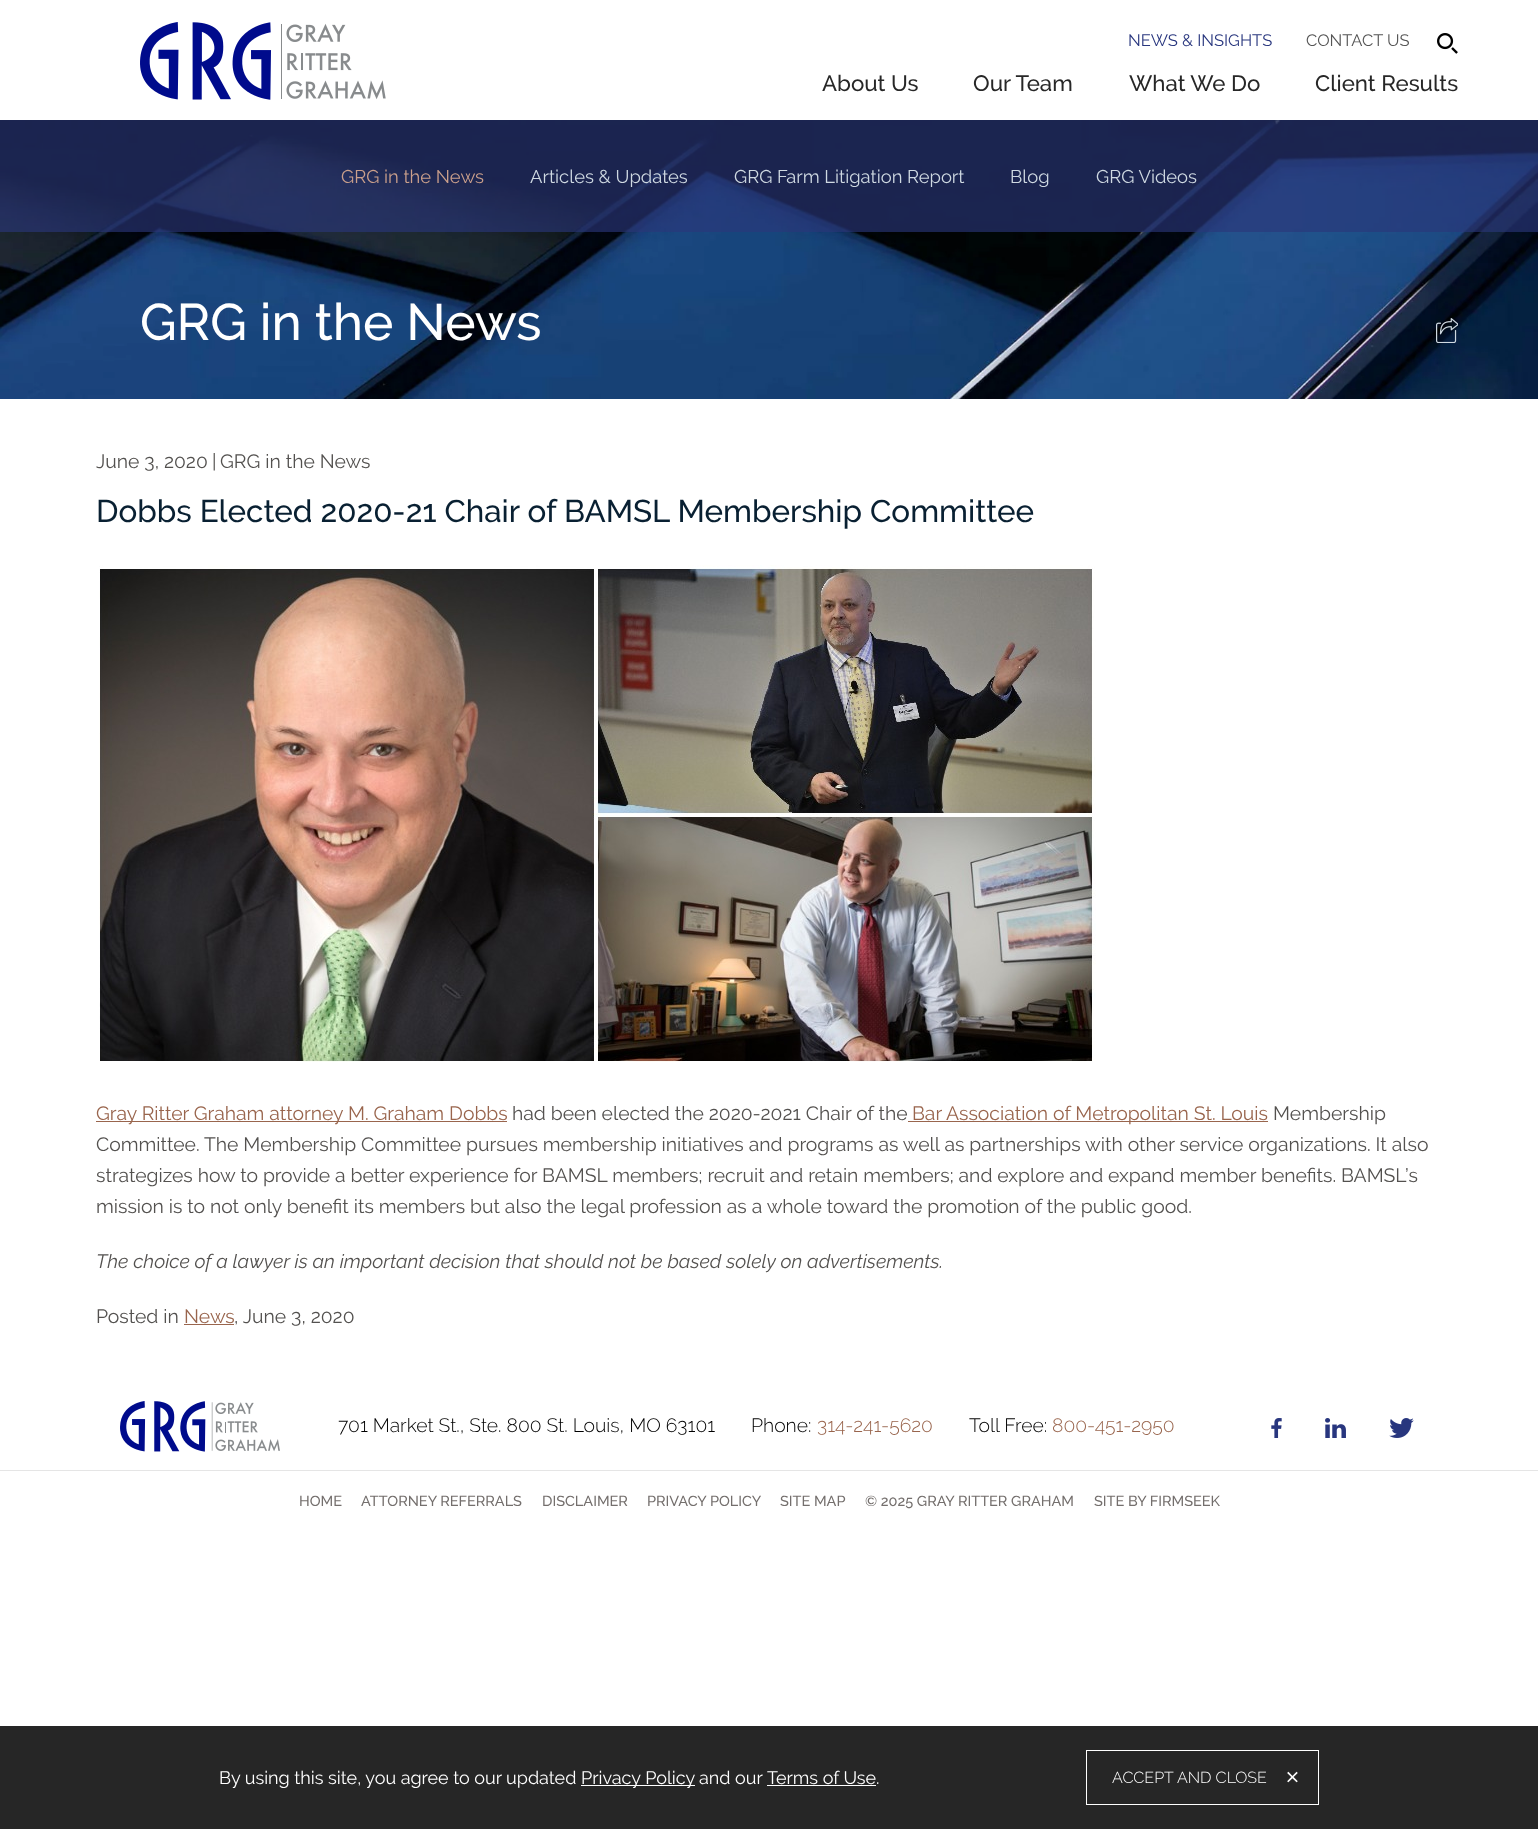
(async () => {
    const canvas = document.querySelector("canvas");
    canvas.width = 1538;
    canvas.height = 1829;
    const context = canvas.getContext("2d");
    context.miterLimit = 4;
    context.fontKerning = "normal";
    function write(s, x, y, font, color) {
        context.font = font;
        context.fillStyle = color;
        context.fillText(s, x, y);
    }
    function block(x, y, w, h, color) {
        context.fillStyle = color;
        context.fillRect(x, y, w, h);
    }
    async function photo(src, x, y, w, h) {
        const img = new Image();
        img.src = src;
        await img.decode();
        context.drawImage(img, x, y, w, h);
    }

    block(0, 0, 1538, 1829, "rgb(255, 255, 255)");
    await photo("media/1.png", 140, 22, 246, 78);
    await photo("media/2.png", 1437, 33, 21, 21);
    write("NEWS & INSIGHTS", 1128, 46, "16.5px Raleway", "rgb(40, 54, 126)");
    write("CONTACT US", 1306, 46, "16.5px Raleway", "rgb(85, 85, 85)");
    write("About Us", 822, 91, "500 22.25px Raleway", "rgb(39, 39, 39)");
    write("Our Team", 973, 91, "500 22.25px Raleway", "rgb(39, 39, 39)");
    write("What We Do", 1129, 91, "500 22.25px Raleway", "rgb(39, 39, 39)");
    write("Client Results", 1315, 91, "500 22.25px Raleway", "rgb(39, 39, 39)");
    await photo("media/3.png", 0, 120, 1538, 279);
    block(0, 120, 1538, 112, "rgba(43, 54, 122, 0.64)");
    write("GRG in the News", 341, 183, "18.4px Raleway", "rgb(203, 160, 140)");
    write("Articles & Updates", 530, 183, "18.4px Raleway", "rgb(207, 217, 226)");
    write("GRG Farm Litigation Report", 734, 183, "18.4px Raleway", "rgb(207, 217, 226)");
    write("Blog", 1010, 183, "18.4px Raleway", "rgb(207, 217, 226)");
    write("GRG Videos", 1096, 183, "18.4px Raleway", "rgb(207, 217, 226)");
    write("GRG in the News", 140, 340, "500 51.25px Raleway", "rgb(255, 255, 255)");
    await photo("media/4.png", 1436, 318, 22, 25);
    write("June 3, 2020", 96, 468, "19.35px Raleway", "rgb(83, 81, 79)");
    write("|", 212, 468, "19.35px Raleway", "rgb(83, 81, 79)");
    write("GRG in the News", 220, 468, "19.35px Raleway", "rgb(83, 81, 79)");
    write("Dobbs Elected 2020-21 Chair of BAMSL Membership Committee", 96, 522, "500 31.35px Raleway", "rgb(9, 32, 50)");
    await photo("media/5.png", 99, 565, 997, 497);
    block(96, 1121, 411, 1, "rgb(153, 101, 77)");
    write("Gray Ritter Graham attorney M. Graham Dobbs", 96, 1120, "19.35px Raleway", "rgb(153, 101, 77)");
    write("had been elected the 2020-2021 Chair of the", 512, 1120, "19.35px Raleway", "rgb(83, 81, 79)");
    block(908, 1121, 360, 1, "rgb(153, 101, 77)");
    write("Bar Association of Metropolitan St. Louis", 912, 1120, "19.35px Raleway", "rgb(153, 101, 77)");
    write("Membership", 1273, 1120, "19.35px Raleway", "rgb(83, 81, 79)");
    write("Committee. The Membership Committee pursues membership initiatives and programs as well as partnerships with other service organizations. It also", 96, 1151, "19.35px Raleway", "rgb(83, 81, 79)");
    write("strategizes how to provide a better experience for BAMSL members; recruit and retain members; and explore and expand member benefits. BAMSL’s", 96, 1182, "19.35px Raleway", "rgb(83, 81, 79)");
    write("mission is to not only benefit its members but also the legal profession as a whole toward the promotion of the public good.", 96, 1213, "19.35px Raleway", "rgb(83, 81, 79)");
    write("The choice of a lawyer is an important decision that should not be based solely on advertisements.", 96, 1268, "italic 19.35px Raleway", "rgb(83, 81, 79)");
    write("Posted in", 96, 1323, "19.35px Raleway", "rgb(83, 81, 79)");
    write("News", 184, 1323, "19.35px Raleway", "rgb(153, 101, 77)");
    block(184, 1324, 50, 1, "rgb(153, 101, 77)");
    write(", June 3, 2020", 234, 1323, "19.35px Raleway", "rgb(83, 81, 79)");
    await photo("media/6.png", 120, 1401, 160, 51);
    write("701 Market St., Ste. 800 St. Louis, MO 63101", 338, 1432, "300 19.35px Raleway", "rgb(0, 0, 0)");
    write("Phone:", 751, 1432, "300 19.35px Raleway", "rgb(0, 0, 0)");
    write("314-241-5620", 817, 1432, "300 19.35px Raleway", "rgb(153, 101, 77)");
    write("Toll Free:", 969, 1432, "300 19.35px Raleway", "rgb(0, 0, 0)");
    write("800-451-2950", 1052, 1432, "300 19.35px Raleway", "rgb(153, 101, 77)");
    await photo("media/7.png", 1271, 1418, 11, 20);
    await photo("media/8.png", 1325, 1418, 21, 20);
    await photo("media/9.png", 1389, 1418, 25, 20);
    block(0, 1470, 1538, 1, "rgb(229, 229, 229)");
    write("HOME", 299, 1506, "500 14.5px Raleway", "rgb(116, 111, 109)");
    write("ATTORNEY REFERRALS", 361, 1506, "500 14.5px Raleway", "rgb(116, 111, 109)");
    write("DISCLAIMER", 542, 1506, "500 14.5px Raleway", "rgb(116, 111, 109)");
    write("PRIVACY POLICY", 647, 1506, "500 14.5px Raleway", "rgb(116, 111, 109)");
    write("SITE MAP", 780, 1506, "500 14.5px Raleway", "rgb(116, 111, 109)");
    write("© 2025 GRAY RITTER GRAHAM", 865, 1506, "500 14.5px Raleway", "rgb(116, 111, 109)");
    write("SITE BY FIRMSEEK", 1094, 1506, "500 14.5px Raleway", "rgb(116, 111, 109)");
    block(0, 1726, 1538, 103, "rgb(38, 38, 38)");
    write("By using this site, you agree to our updated", 219, 1784, "18px Raleway", "rgb(255, 255, 255)");
    block(581, 1785, 114, 1, "rgb(255, 255, 255)");
    write("Privacy Policy", 581, 1784, "18px Raleway", "rgb(255, 255, 255)");
    write("and our", 699, 1784, "18px Raleway", "rgb(255, 255, 255)");
    write("Terms of Use.", 767, 1784, "18px Raleway", "rgb(255, 255, 255)");
    block(767, 1785, 109, 1, "rgb(255, 255, 255)");
    context.strokeStyle = "rgb(255, 255, 255)";
    context.strokeRect(1086.5, 1750.5, 232, 54);
    write("ACCEPT AND CLOSE", 1112, 1783, "300 16px Raleway", "rgb(255, 255, 255)");
    write("×", 1285, 1786, "300 33px Raleway", "rgb(255, 255, 255)");
})();
